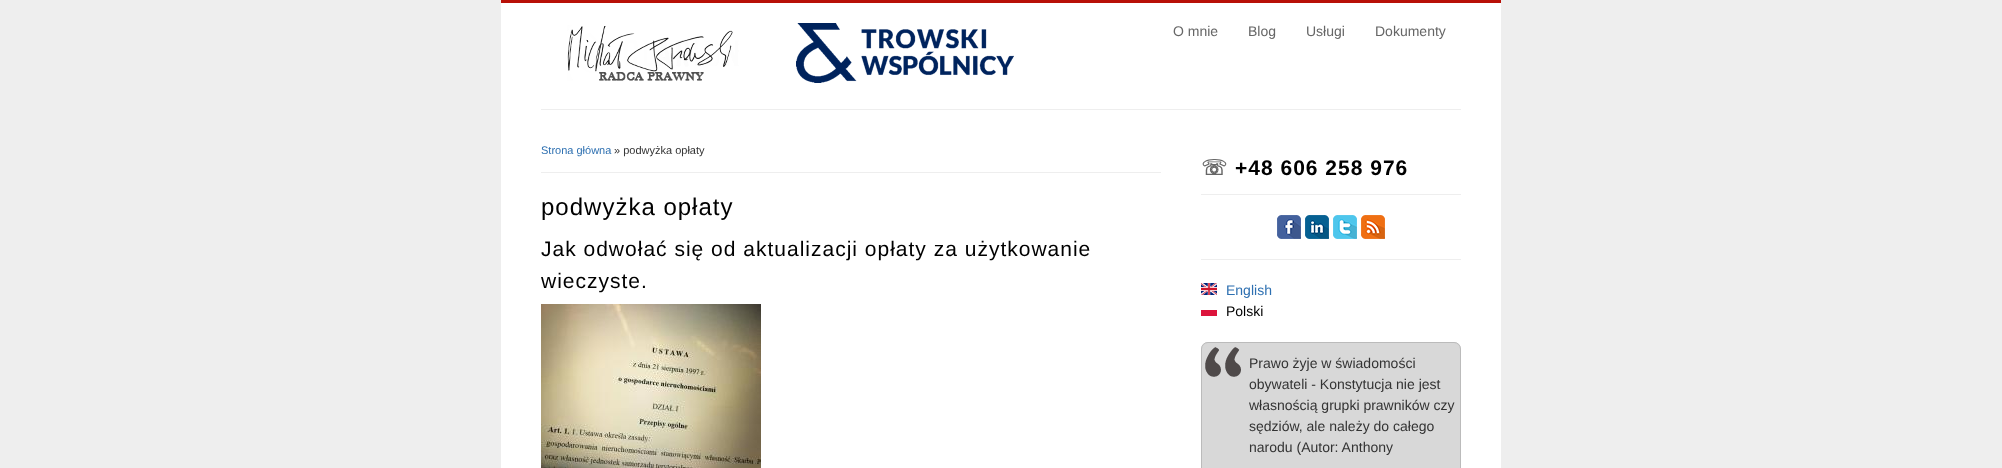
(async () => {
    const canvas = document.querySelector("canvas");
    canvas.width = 2002;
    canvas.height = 468;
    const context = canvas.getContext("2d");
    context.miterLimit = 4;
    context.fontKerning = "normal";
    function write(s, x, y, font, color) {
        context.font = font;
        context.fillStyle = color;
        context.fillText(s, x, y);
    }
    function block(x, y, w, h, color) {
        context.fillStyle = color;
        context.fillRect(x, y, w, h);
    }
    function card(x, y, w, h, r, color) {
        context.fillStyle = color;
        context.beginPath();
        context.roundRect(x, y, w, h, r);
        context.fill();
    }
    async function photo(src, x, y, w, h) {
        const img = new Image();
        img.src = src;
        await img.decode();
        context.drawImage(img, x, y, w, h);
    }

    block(0, 0, 2002, 468, "rgb(238, 238, 238)");
    block(501, 3, 1000, 465, "rgb(255, 255, 255)");
    block(501, 0, 1000, 3, "rgb(184, 16, 7)");
    block(541, 109, 920, 1, "rgb(238, 238, 238)");
    await photo("media/1.png", 567, 23, 447, 60);
    write("O mnie", 1173, 36, "14px Liberation Sans", "rgb(102, 102, 102)");
    write("Blog", 1248, 36, "14px Liberation Sans", "rgb(102, 102, 102)");
    write("Usługi", 1306, 36, "14px Liberation Sans", "rgb(102, 102, 102)");
    write("Dokumenty", 1375, 36, "14px Liberation Sans", "rgb(102, 102, 102)");
    block(541, 172, 620, 1, "rgb(238, 238, 238)");
    write("Strona główna", 541, 154, "11px Liberation Sans", "rgb(46, 112, 177)");
    write("» podwyżka opłaty", 614, 154, "11px Liberation Sans", "rgb(51, 51, 51)");
    context.letterSpacing = "1px";
    write("podwyżka opłaty", 541, 215, "24px Liberation Sans", "rgb(0, 0, 0)");
    write("Jak odwołać się od aktualizacji opłaty za użytkowanie", 541, 256, "21px Liberation Sans", "rgb(0, 0, 0)");
    write("wieczyste.", 541, 288, "21px Liberation Sans", "rgb(0, 0, 0)");
    await photo("media/2.png", 541, 304, 220, 164);
    block(1201, 194, 260, 1, "rgb(238, 238, 238)");
    write("☏", 1201, 175, "bold 21px DejaVu Sans", "rgb(102, 102, 102)");
    write("+48 606 258 976", 1235, 175, "bold 21px Liberation Sans", "rgb(0, 0, 0)");
    block(1201, 259, 260, 1, "rgb(238, 238, 238)");
    await photo("media/3.png", 1277, 215, 24, 24);
    await photo("media/4.png", 1305, 215, 24, 24);
    await photo("media/5.png", 1333, 215, 24, 24);
    await photo("media/6.png", 1361, 215, 24, 24);
    await photo("media/7.png", 1201, 283, 16, 12);
    context.letterSpacing = "0px";
    write("English", 1226, 295, "14px Liberation Sans", "rgb(46, 112, 177)");
    write("Polski", 1226, 316, "14px Liberation Sans", "rgb(0, 0, 0)");
    block(1201, 310, 16, 6, "rgb(220, 20, 60)");
    card(1201, 342, 260, 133, 7, "rgb(216, 216, 216)");
    await photo("media/8.png", 1205, 347, 36, 30);
    context.beginPath();
    context.roundRect(1201.5, 342.5, 259, 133, 6.5);
    context.strokeStyle = "rgb(187, 187, 187)";
    context.stroke();
    write("Prawo żyje w świadomości", 1249, 368, "14px Liberation Sans", "rgb(51, 51, 51)");
    write("obywateli - Konstytucja nie jest", 1249, 389, "14px Liberation Sans", "rgb(51, 51, 51)");
    write("własnością grupki prawników czy", 1249, 410, "14px Liberation Sans", "rgb(51, 51, 51)");
    write("sędziów, ale należy do całego", 1249, 431, "14px Liberation Sans", "rgb(51, 51, 51)");
    write("narodu (Autor: Anthony", 1249, 452, "14px Liberation Sans", "rgb(51, 51, 51)");
})();
